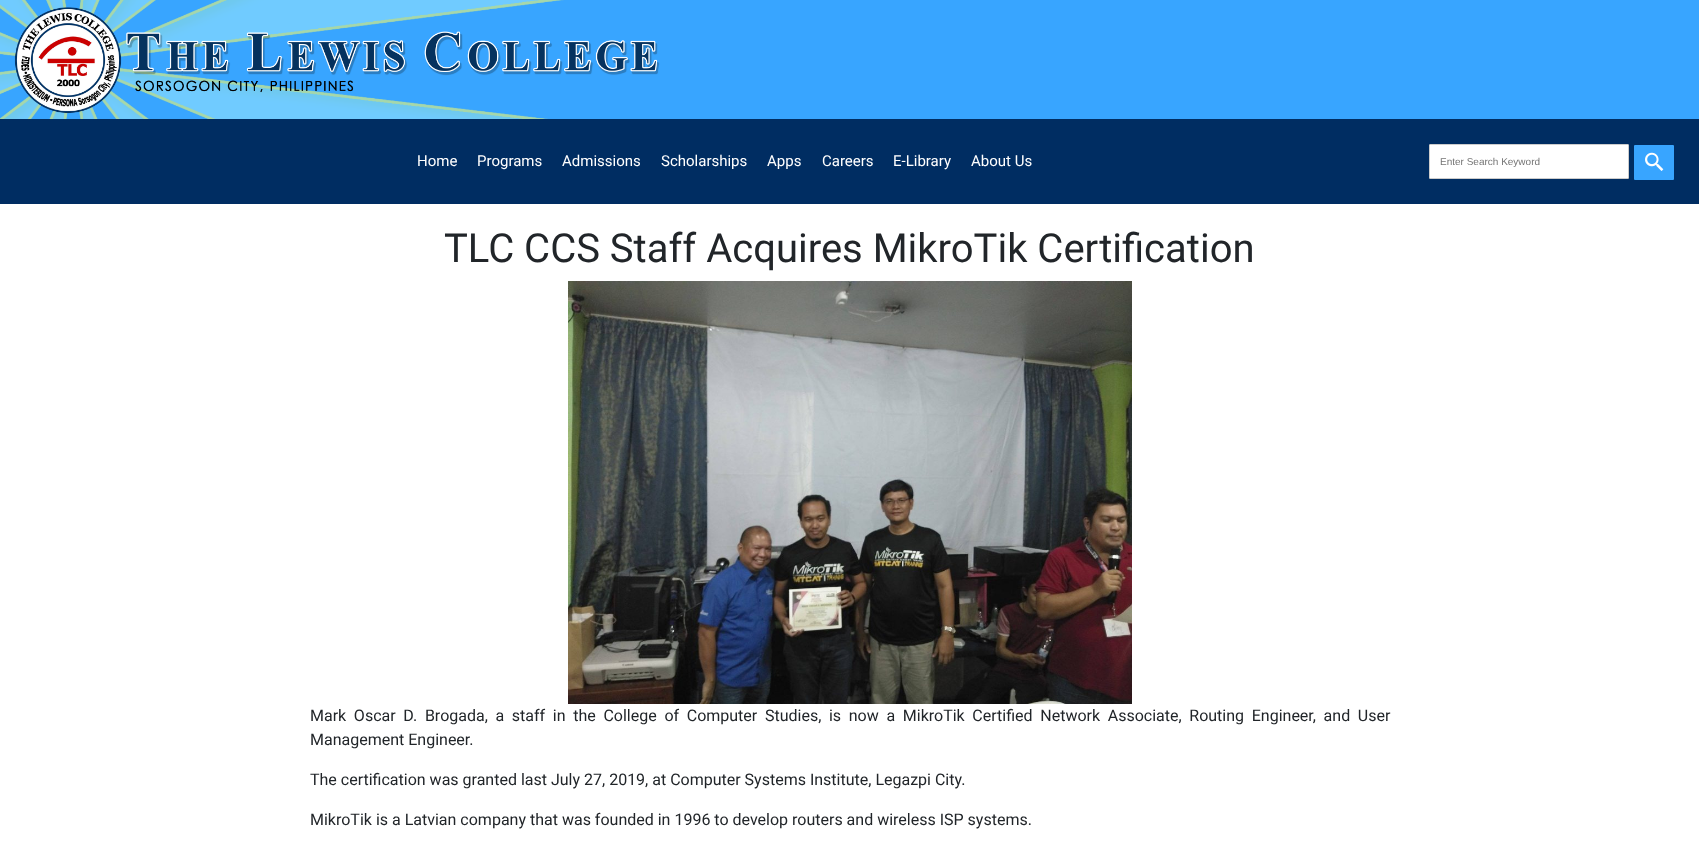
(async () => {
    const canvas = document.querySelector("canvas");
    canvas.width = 1699;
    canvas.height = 854;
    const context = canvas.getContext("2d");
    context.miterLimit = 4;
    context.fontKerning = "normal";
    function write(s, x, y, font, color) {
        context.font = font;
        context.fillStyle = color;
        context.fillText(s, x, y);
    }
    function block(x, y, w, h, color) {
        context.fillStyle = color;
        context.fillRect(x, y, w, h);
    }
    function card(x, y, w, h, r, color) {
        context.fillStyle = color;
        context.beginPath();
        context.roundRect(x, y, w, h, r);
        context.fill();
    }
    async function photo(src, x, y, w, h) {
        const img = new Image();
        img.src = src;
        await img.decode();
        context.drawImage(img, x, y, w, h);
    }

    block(0, 0, 1699, 854, "rgb(255, 255, 255)");
    block(660, 0, 1039, 119, "rgb(56, 165, 255)");
    await photo("media/1.png", 0, 0, 660, 119);
    block(0, 119, 1699, 85, "rgb(0, 45, 98)");
    write("Home", 417, 166, "15px Roboto", "rgb(255, 255, 255)");
    write("Programs", 477, 166, "15px Roboto", "rgb(255, 255, 255)");
    write("Admissions", 562, 166, "15px Roboto", "rgb(255, 255, 255)");
    write("Scholarships", 661, 166, "15px Roboto", "rgb(255, 255, 255)");
    write("Apps", 767, 166, "15px Roboto", "rgb(255, 255, 255)");
    write("Careers", 822, 166, "15px Roboto", "rgb(255, 255, 255)");
    write("E-Library", 893, 166, "15px Roboto", "rgb(255, 255, 255)");
    write("About Us", 971, 166, "15px Roboto", "rgb(255, 255, 255)");
    context.beginPath();
    context.roundRect(1429.5, 144.5, 199, 34, 0.5);
    context.fill();
    context.strokeStyle = "rgb(204, 204, 204)";
    context.stroke();
    write("Enter Search Keyword", 1440, 165, "10px Liberation Sans", "rgb(117, 117, 117)");
    card(1634, 145, 40, 35, 1, "rgb(56, 165, 255)");
    await photo("media/2.png", 1645, 152, 19, 19);
    write("TLC CCS Staff Acquires MikroTik Certification", 444, 262, "40px Roboto", "rgb(33, 37, 41)");
    await photo("media/3.png", 568, 281, 564, 423);
    context.wordSpacing = "3.7px";
    write("Mark Oscar D. Brogada, a staff in the College of Computer Studies, is now a MikroTik Certified Network Associate, Routing Engineer, and User", 310, 721, "16px Roboto", "rgb(33, 37, 41)");
    context.wordSpacing = "0px";
    write("Management Engineer.", 310, 745, "16px Roboto", "rgb(33, 37, 41)");
    write("The certification was granted last July 27, 2019, at Computer Systems Institute, Legazpi City.", 310, 785, "16px Roboto", "rgb(33, 37, 41)");
    write("MikroTik is a Latvian company that was founded in 1996 to develop routers and wireless ISP systems.", 310, 825, "16px Roboto", "rgb(33, 37, 41)");
})();
